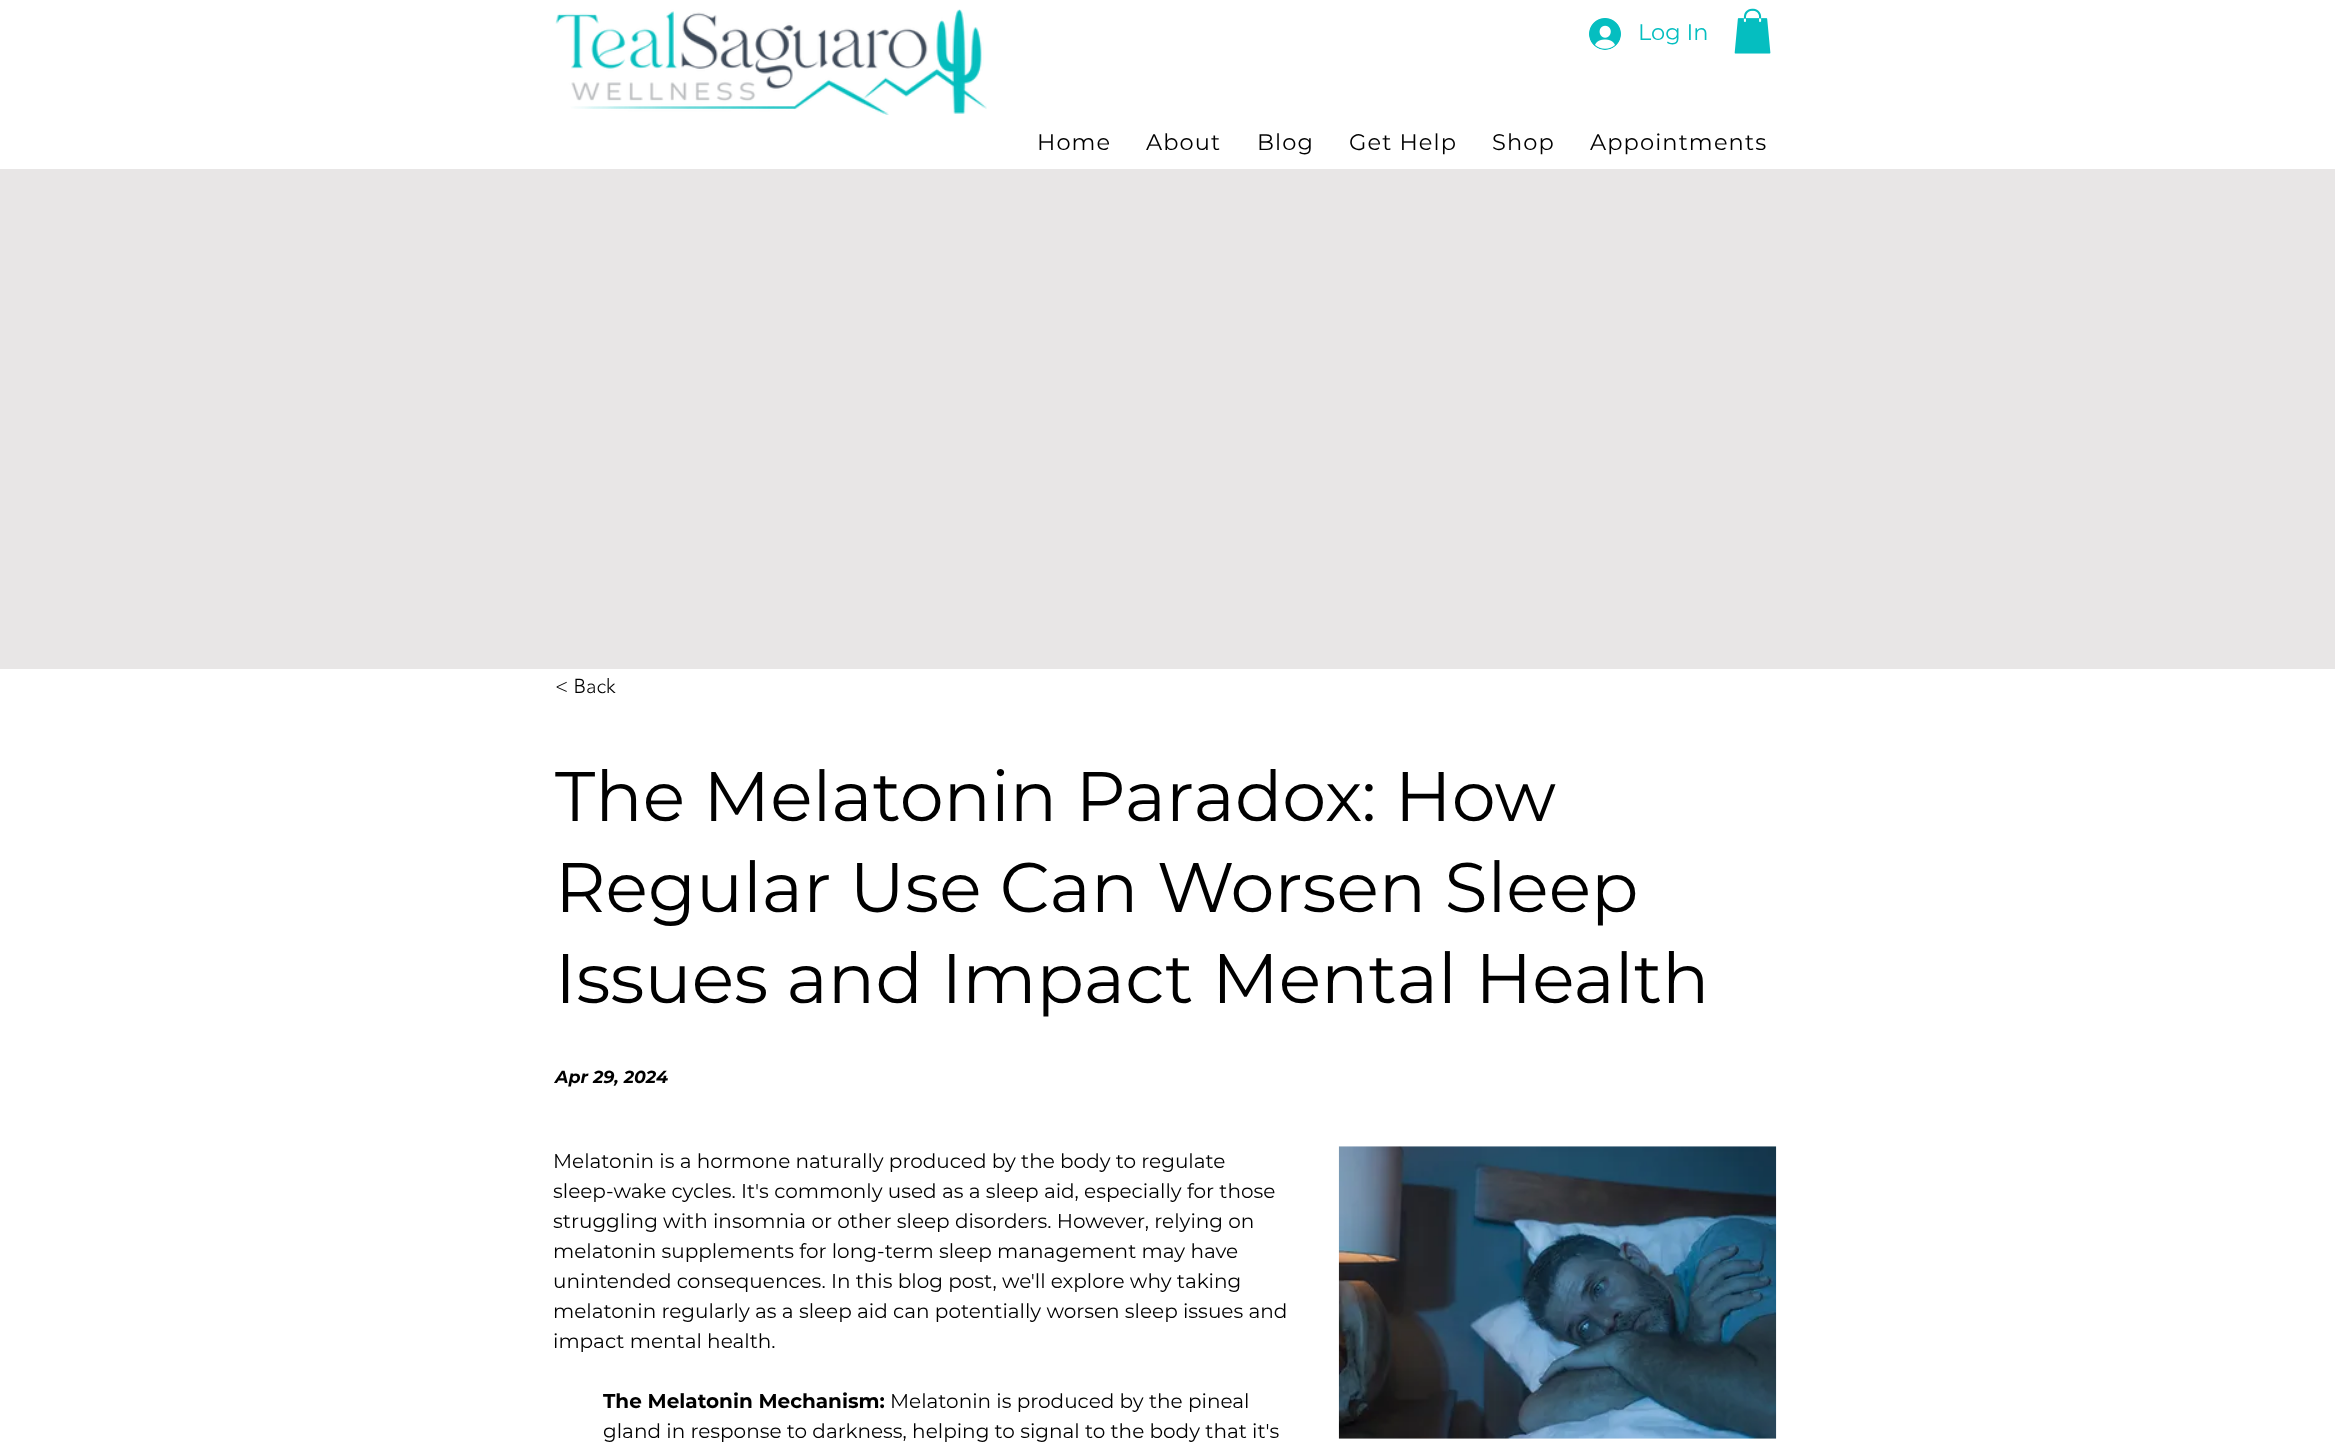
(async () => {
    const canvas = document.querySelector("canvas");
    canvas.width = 2335;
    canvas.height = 1454;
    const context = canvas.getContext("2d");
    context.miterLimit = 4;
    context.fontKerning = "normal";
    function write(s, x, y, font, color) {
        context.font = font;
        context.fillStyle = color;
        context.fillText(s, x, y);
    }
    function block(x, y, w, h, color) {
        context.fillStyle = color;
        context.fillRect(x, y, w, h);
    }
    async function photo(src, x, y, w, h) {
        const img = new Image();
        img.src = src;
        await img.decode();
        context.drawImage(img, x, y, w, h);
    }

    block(0, 0, 2335, 1454, "rgb(255, 255, 255)");
    await photo("media/1.png", 555, 9, 432, 106);
    await photo("media/2.png", 1589, 18, 32, 32);
    write("Log In", 1638, 40, "22.5px Montserrat", "rgb(5, 190, 192)");
    await photo("media/3.png", 1734, 8, 37, 46);
    context.letterSpacing = "1.1px";
    write("Home", 1037, 150, "22.5px Montserrat", "rgb(0, 0, 0)");
    write("About", 1146, 150, "22.5px Montserrat", "rgb(0, 0, 0)");
    write("Blog", 1257, 150, "22.5px Montserrat", "rgb(0, 0, 0)");
    write("Get Help", 1349, 150, "22.5px Montserrat", "rgb(0, 0, 0)");
    write("Shop", 1492, 150, "22.5px Montserrat", "rgb(0, 0, 0)");
    write("Appointments", 1590, 150, "22.5px Montserrat", "rgb(0, 0, 0)");
    block(0, 169, 2335, 500, "rgb(232, 230, 230)");
    context.letterSpacing = "0px";
    write("< Back", 555, 693, "300 20px 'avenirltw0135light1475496'", "rgb(0, 0, 0)");
    write("The Melatonin Paradox: How", 555, 821, "70px Montserrat", "rgb(0, 0, 0)");
    write("Regular Use Can Worsen Sleep", 555, 912, "70px Montserrat", "rgb(0, 0, 0)");
    write("Issues and Impact Mental Health", 555, 1003, "70px Montserrat", "rgb(0, 0, 0)");
    write("Apr 29, 2024", 555, 1083, "italic bold 17.5px Montserrat", "rgb(0, 0, 0)");
    write("Melatonin is a hormone naturally produced by the body to regulate", 553, 1168, "20px Montserrat", "rgb(0, 0, 0)");
    write("sleep-wake cycles. It's commonly used as a sleep aid, especially for those", 553, 1198, "20px Montserrat", "rgb(0, 0, 0)");
    write("struggling with insomnia or other sleep disorders. However, relying on", 553, 1228, "20px Montserrat", "rgb(0, 0, 0)");
    write("melatonin supplements for long-term sleep management may have", 553, 1258, "20px Montserrat", "rgb(0, 0, 0)");
    write("unintended consequences. In this blog post, we'll explore why taking", 553, 1288, "20px Montserrat", "rgb(0, 0, 0)");
    write("melatonin regularly as a sleep aid can potentially worsen sleep issues and", 553, 1318, "20px Montserrat", "rgb(0, 0, 0)");
    write("impact mental health.", 553, 1348, "20px Montserrat", "rgb(0, 0, 0)");
    await photo("media/4.png", 1338, 1146, 439, 293);
    write("The Melatonin Mechanism:", 603, 1408, "bold 20px Montserrat", "rgb(0, 0, 0)");
    write("Melatonin is produced by the pineal", 890, 1408, "20px Montserrat", "rgb(0, 0, 0)");
    write("gland in response to darkness, helping to signal to the body that it's", 603, 1438, "20px Montserrat", "rgb(0, 0, 0)");
})();
